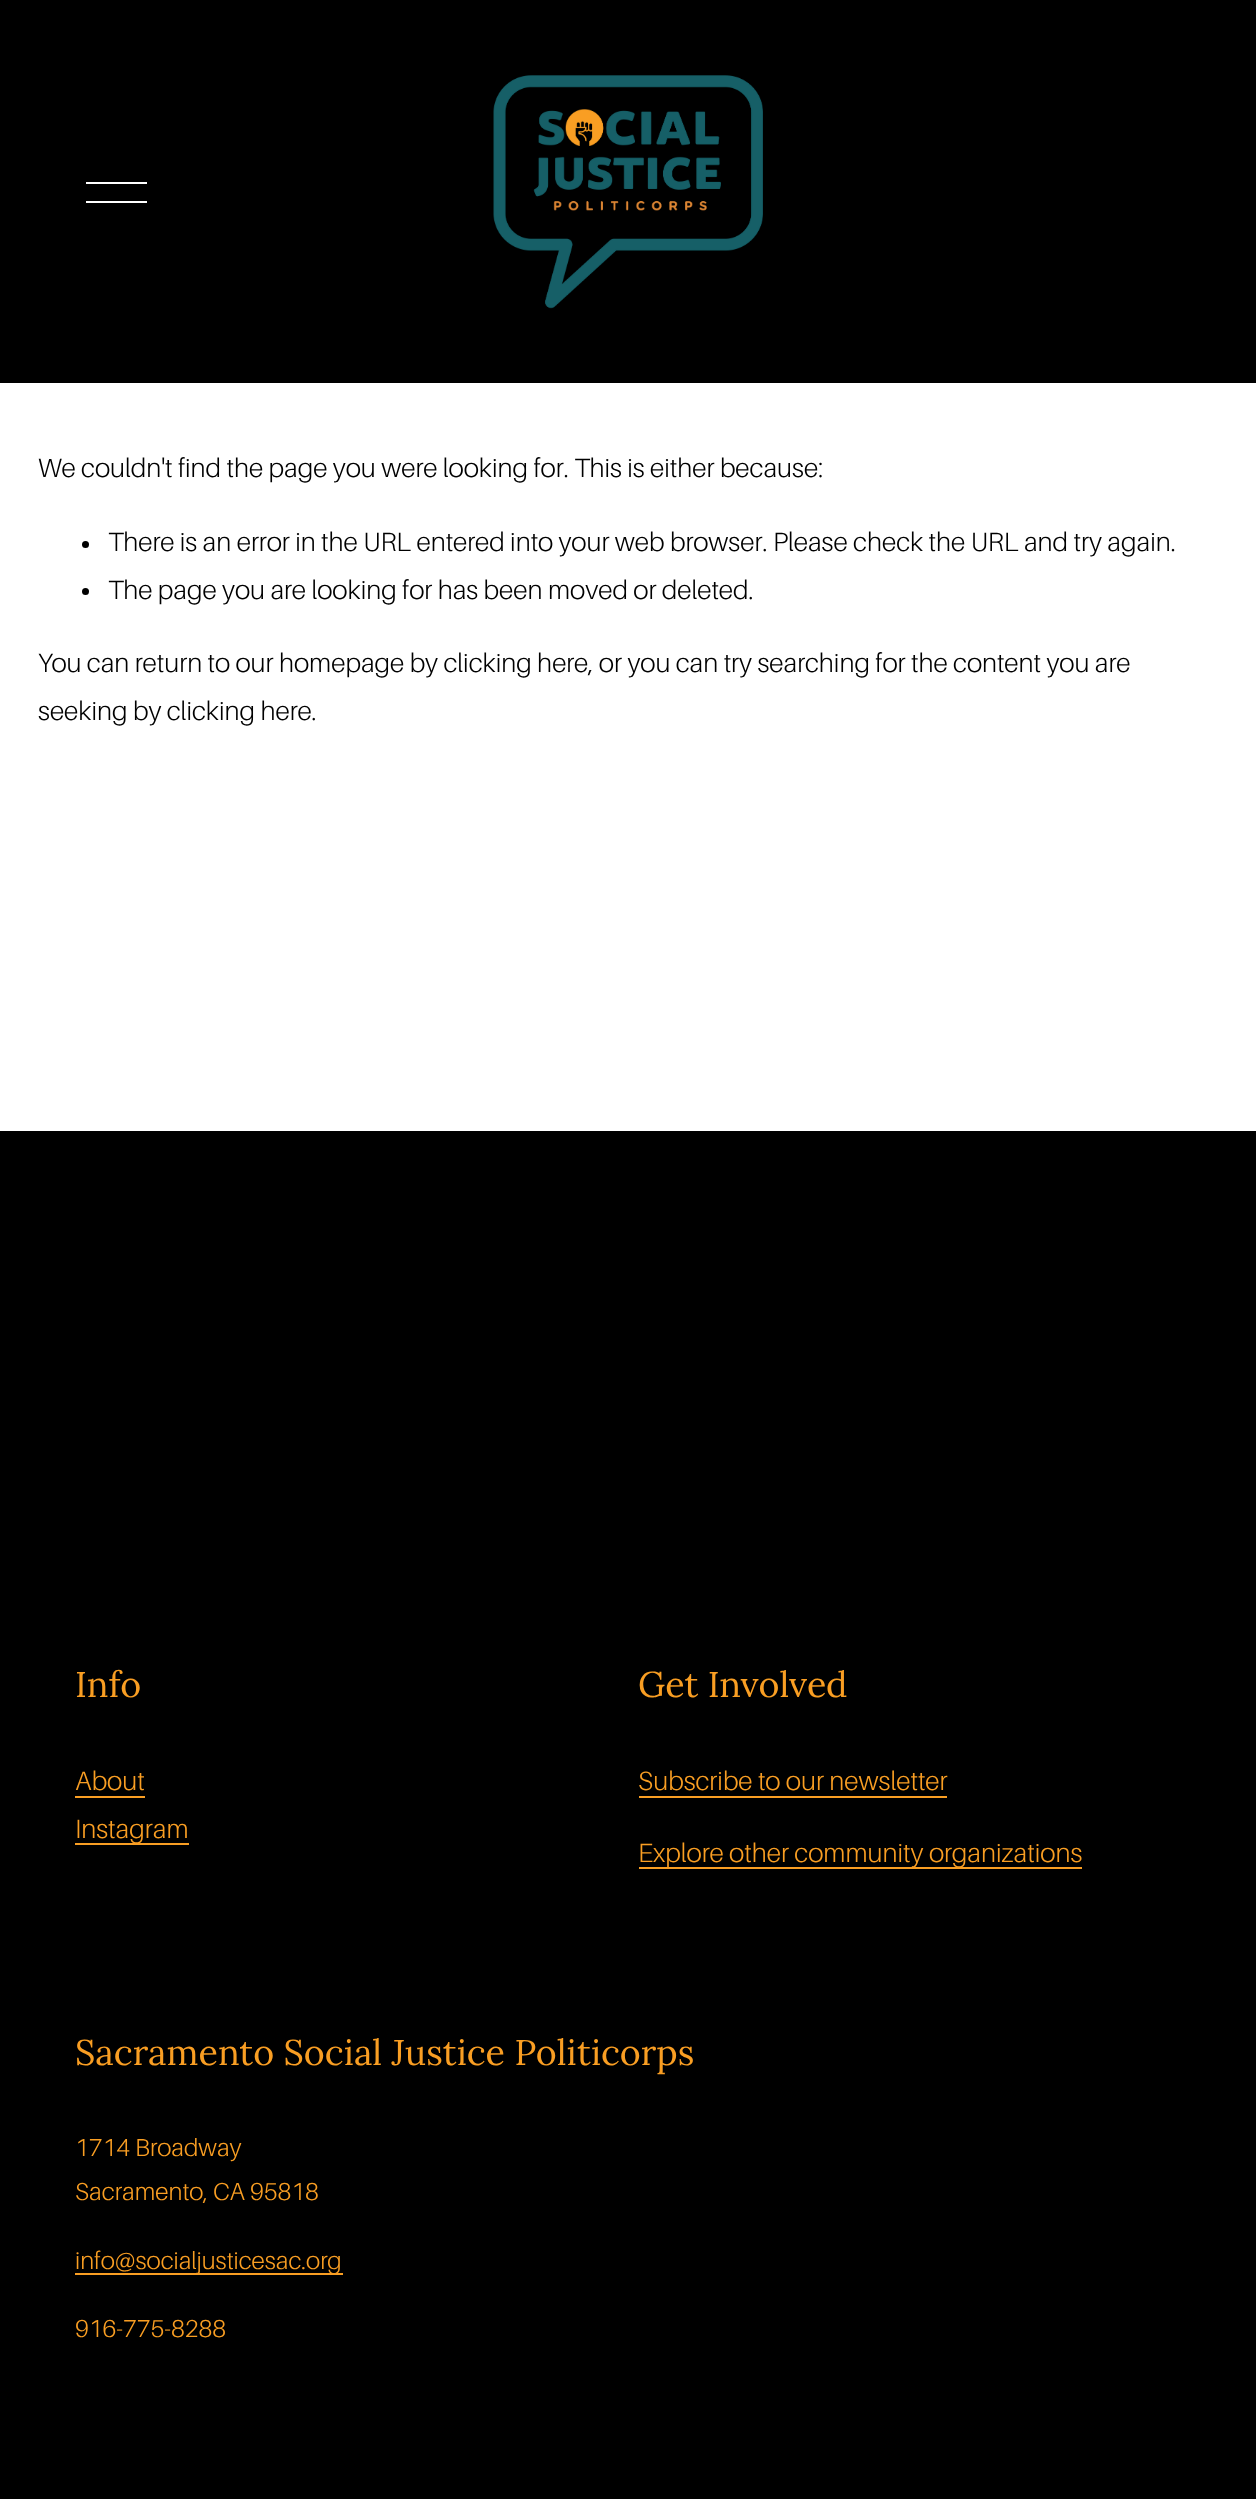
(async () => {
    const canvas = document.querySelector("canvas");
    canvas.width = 1256;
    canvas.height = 2499;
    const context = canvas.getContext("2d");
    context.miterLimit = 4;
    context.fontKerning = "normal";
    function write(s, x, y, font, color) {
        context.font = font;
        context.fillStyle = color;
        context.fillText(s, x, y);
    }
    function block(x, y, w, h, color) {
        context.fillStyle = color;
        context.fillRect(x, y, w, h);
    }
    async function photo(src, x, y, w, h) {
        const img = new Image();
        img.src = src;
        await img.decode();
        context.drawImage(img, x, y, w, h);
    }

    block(0, 0, 1256, 2499, "rgb(255, 255, 255)");
    block(0, 0, 1256, 383, "rgb(0, 0, 0)");
    block(86, 182, 61, 2, "rgb(255, 255, 255)");
    block(86, 201, 61, 2, "rgb(255, 255, 255)");
    await photo("media/1.png", 493, 75, 270, 234);
    write("We couldn't find the page you were looking for. This is either because:", 38, 477, "300 26.4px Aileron", "rgb(0, 0, 0)");
    context.beginPath();
    context.arc(85.5, 544.5, 3.5, 0, Math.PI * 2);
    context.fill();
    write("There is an error in the URL entered into your web browser. Please check the URL and try again.", 108, 551, "300 26.4px Aileron", "rgb(0, 0, 0)");
    context.beginPath();
    context.arc(85.5, 591.5, 3.5, 0, Math.PI * 2);
    context.fill();
    write("The page you are looking for has been moved or deleted.", 108, 599, "300 26.4px Aileron", "rgb(0, 0, 0)");
    write("You can return to our homepage by clicking here, or you can try searching for the content you are", 38, 672, "300 26.4px Aileron", "rgb(0, 0, 0)");
    write("seeking by clicking here.", 38, 720, "300 26.4px Aileron", "rgb(0, 0, 0)");
    block(0, 1131, 1256, 1368, "rgb(0, 0, 0)");
    write("Info", 75, 1697, "35.8px Lora", "rgb(249, 158, 35)");
    write("About", 75, 1790, "300 26.4px Aileron", "rgb(249, 158, 35)");
    block(75, 1796, 70, 2, "rgb(249, 158, 35)");
    block(75, 1843, 114, 2, "rgb(249, 158, 35)");
    write("Instagram", 75, 1838, "300 26.4px Aileron", "rgb(249, 158, 35)");
    write("Get Involved", 638, 1697, "35.8px Lora", "rgb(249, 158, 35)");
    write("Subscribe to our newsletter", 638, 1790, "300 26.4px Aileron", "rgb(249, 158, 35)");
    block(639, 1796, 308, 2, "rgb(249, 158, 35)");
    block(639, 1867, 443, 2, "rgb(249, 158, 35)");
    write("Explore other community organizations", 638, 1862, "300 26.4px Aileron", "rgb(249, 158, 35)");
    write("Sacramento Social Justice Politicorps", 75, 2065, "35.8px Lora", "rgb(249, 158, 35)");
    write("1714 Broadway", 75, 2156, "300 24.5px Aileron", "rgb(249, 158, 35)");
    write("Sacramento, CA 95818", 75, 2200, "300 24.5px Aileron", "rgb(249, 158, 35)");
    block(75, 2273, 268, 2, "rgb(249, 158, 35)");
    write("info@socialjusticesac.org", 75, 2269, "300 24.5px Aileron", "rgb(249, 158, 35)");
    write("916-775-8288", 75, 2337, "300 24.5px Aileron", "rgb(249, 158, 35)");
})();
